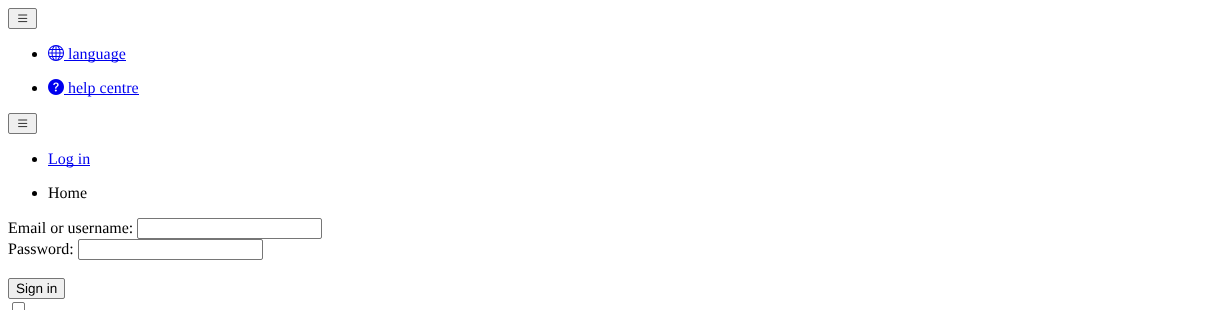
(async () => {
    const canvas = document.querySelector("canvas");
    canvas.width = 1212;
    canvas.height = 310;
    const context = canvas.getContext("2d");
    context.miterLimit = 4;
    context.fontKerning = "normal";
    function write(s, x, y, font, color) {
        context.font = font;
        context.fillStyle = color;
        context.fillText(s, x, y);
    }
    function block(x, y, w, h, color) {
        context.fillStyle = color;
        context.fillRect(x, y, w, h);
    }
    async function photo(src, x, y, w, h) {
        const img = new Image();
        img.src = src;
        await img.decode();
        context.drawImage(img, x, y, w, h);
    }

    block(0, 0, 1212, 310, "rgb(255, 255, 255)");
    context.fillStyle = "rgb(239, 239, 239)";
    context.beginPath();
    context.roundRect(8.5, 8.5, 28, 20, 1.5);
    context.fill();
    context.strokeStyle = "rgb(118, 118, 118)";
    context.stroke();
    await photo("media/1.png", 18, 14, 10, 9);
    context.fillStyle = "rgb(0, 0, 0)";
    context.beginPath();
    context.arc(34.5, 54.5, 2.5, 0, Math.PI * 2);
    context.fill();
    await photo("media/2.png", 48, 45, 16, 16);
    block(64, 60, 62, 1, "rgb(0, 0, 238)");
    write("language", 68, 59, "16px Liberation Serif", "rgb(0, 0, 238)");
    context.fillStyle = "rgb(0, 0, 0)";
    context.beginPath();
    context.arc(34.5, 88.5, 2.5, 0, Math.PI * 2);
    context.fill();
    await photo("media/3.png", 48, 79, 16, 16);
    block(64, 94, 75, 1, "rgb(0, 0, 238)");
    write("help centre", 68, 93, "16px Liberation Serif", "rgb(0, 0, 238)");
    context.fillStyle = "rgb(239, 239, 239)";
    context.beginPath();
    context.roundRect(8.5, 113.5, 28, 20, 1.5);
    context.fill();
    context.stroke();
    await photo("media/1.png", 18, 119, 10, 9);
    context.fillStyle = "rgb(0, 0, 0)";
    context.beginPath();
    context.arc(34.5, 159.5, 2.5, 0, Math.PI * 2);
    context.fill();
    block(48, 165, 42, 1, "rgb(0, 0, 238)");
    write("Log in", 48, 164, "16px Liberation Serif", "rgb(0, 0, 238)");
    context.fillStyle = "rgb(0, 0, 0)";
    context.beginPath();
    context.arc(34.5, 193.5, 2.5, 0, Math.PI * 2);
    context.fill();
    write("Home", 48, 198, "16px Liberation Serif", "rgb(0, 0, 0)");
    write("Email or username:", 8, 233, "16px Liberation Serif", "rgb(0, 0, 0)");
    context.beginPath();
    context.roundRect(137.5, 218.5, 184, 20, 1.5);
    context.stroke();
    write("Password:", 8, 254, "16px Liberation Serif", "rgb(0, 0, 0)");
    context.beginPath();
    context.roundRect(78.5, 239.5, 184, 20, 1.5);
    context.stroke();
    context.fillStyle = "rgb(239, 239, 239)";
    context.beginPath();
    context.roundRect(8.5, 278.5, 56, 20, 1.5);
    context.fill();
    context.stroke();
    write("Sign in", 16, 293, "13.5px Liberation Sans", "rgb(0, 0, 0)");
    context.beginPath();
    context.roundRect(12.5, 302.5, 12, 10, 1.5);
    context.stroke();
})();
